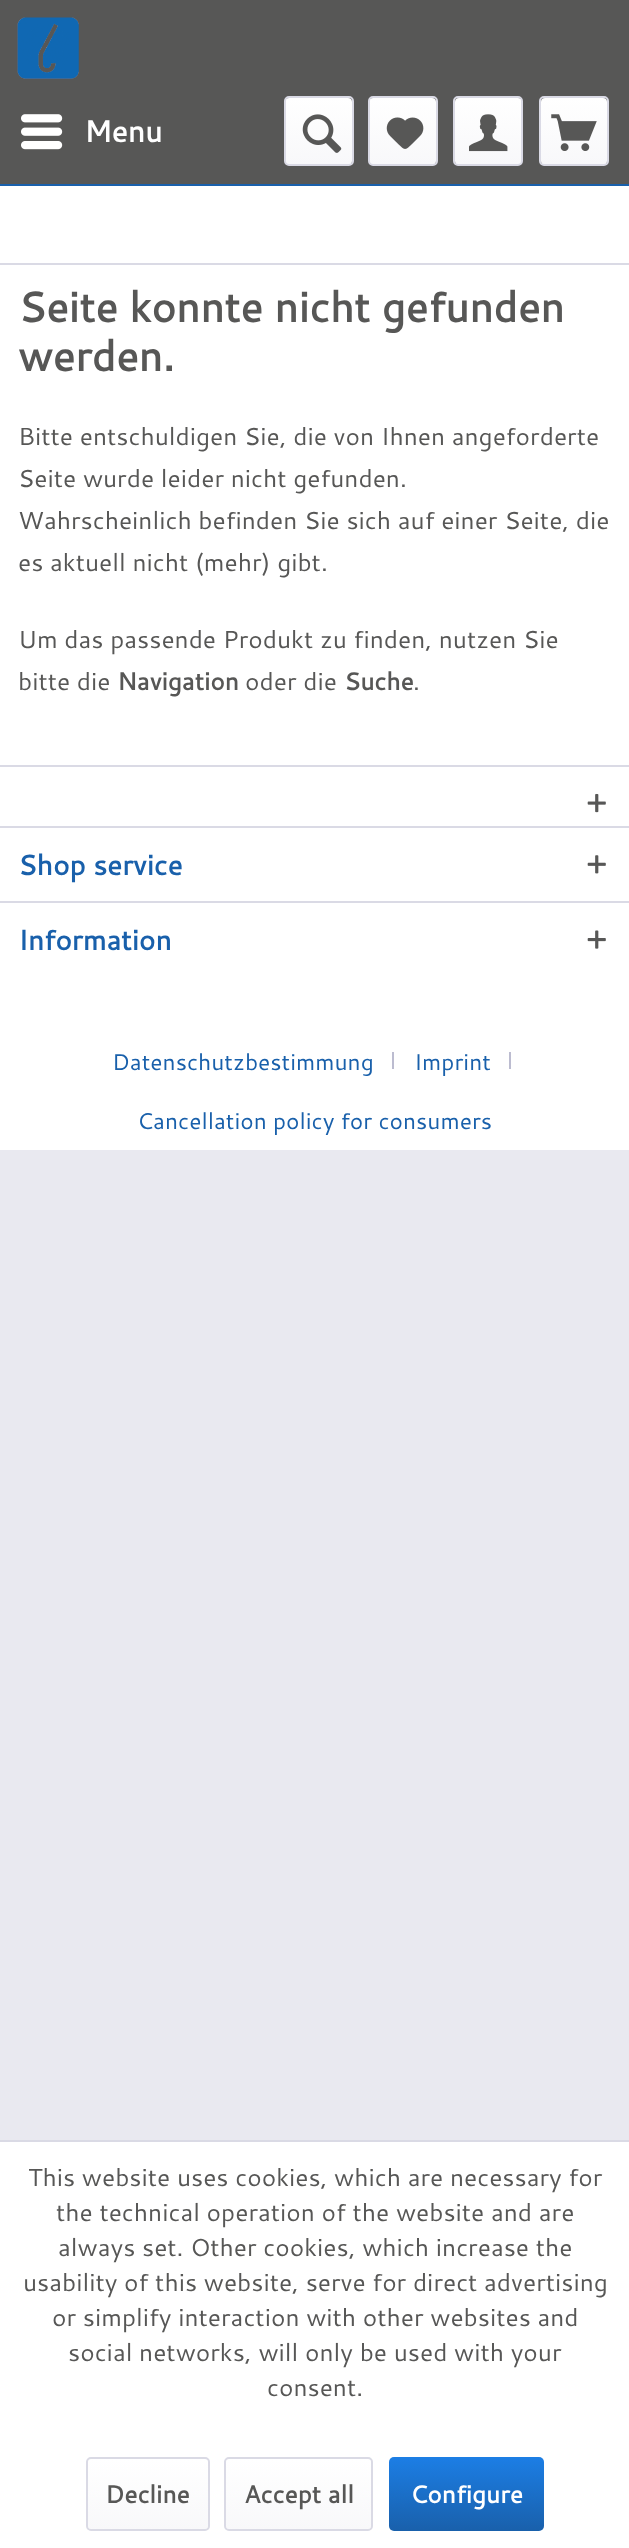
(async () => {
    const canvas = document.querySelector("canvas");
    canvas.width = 629;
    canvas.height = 2548;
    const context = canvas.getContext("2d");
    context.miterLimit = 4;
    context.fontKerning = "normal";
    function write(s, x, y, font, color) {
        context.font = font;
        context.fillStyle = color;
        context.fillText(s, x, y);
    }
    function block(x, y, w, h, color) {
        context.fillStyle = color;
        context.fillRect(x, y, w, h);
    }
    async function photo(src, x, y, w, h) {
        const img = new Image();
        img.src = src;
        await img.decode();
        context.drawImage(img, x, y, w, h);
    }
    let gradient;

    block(0, 0, 629, 2548, "rgb(233, 233, 240)");
    block(0, 0, 629, 184, "rgb(87, 87, 86)");
    block(0, 184, 629, 2, "rgb(25, 96, 171)");
    await photo("media/1.png", 17, 17, 62, 62);
    await photo("media/2.png", 21, 114, 42, 36);
    write("Menu", 84, 142, "bold 30px Cantarell", "rgb(255, 255, 255)");
    gradient = context.createLinearGradient(319, 98, 319, 165);
    gradient.addColorStop(0, "rgb(255, 255, 255)");
    gradient.addColorStop(1, "rgb(248, 248, 250)");
    context.fillStyle = gradient;
    context.beginPath();
    context.roundRect(285, 98, 67, 67, 4);
    context.fill();
    context.beginPath();
    context.roundRect(285, 97, 68, 68, 4);
    context.strokeStyle = "rgb(218, 218, 229)";
    context.lineWidth = 2;
    context.stroke();
    await photo("media/3.png", 302, 114, 40, 39);
    gradient = context.createLinearGradient(403, 98, 403, 165);
    gradient.addColorStop(0, "rgb(255, 255, 255)");
    gradient.addColorStop(1, "rgb(248, 248, 250)");
    context.fillStyle = gradient;
    context.beginPath();
    context.roundRect(369, 98, 67, 67, 4);
    context.fill();
    context.beginPath();
    context.roundRect(369, 97, 68, 68, 4);
    context.stroke();
    await photo("media/4.png", 386, 117, 38, 32);
    gradient = context.createLinearGradient(488, 98, 488, 165);
    gradient.addColorStop(0, "rgb(255, 255, 255)");
    gradient.addColorStop(1, "rgb(248, 248, 250)");
    context.fillStyle = gradient;
    context.beginPath();
    context.roundRect(455, 98, 67, 67, 4);
    context.fill();
    context.beginPath();
    context.roundRect(454, 97, 68, 68, 4);
    context.stroke();
    await photo("media/5.png", 469, 114, 39, 38);
    gradient = context.createLinearGradient(574, 98, 574, 165);
    gradient.addColorStop(0, "rgb(255, 255, 255)");
    gradient.addColorStop(1, "rgb(248, 248, 250)");
    context.fillStyle = gradient;
    context.beginPath();
    context.roundRect(541, 98, 66, 67, 4);
    context.fill();
    context.beginPath();
    context.roundRect(540, 97, 68, 68, 4);
    context.stroke();
    await photo("media/6.png", 551, 114, 46, 37);
    block(0, 186, 629, 579, "rgb(255, 255, 255)");
    block(0, 263, 629, 2, "rgb(218, 218, 229)");
    write("Seite konnte nicht gefunden", 18, 322, "bold 42px Cantarell", "rgb(87, 87, 86)");
    write("werden.", 18, 371, "bold 42px Cantarell", "rgb(87, 87, 86)");
    write("Bitte entschuldigen Sie, die von Ihnen angeforderte", 18, 445, "24.5px Cantarell", "rgb(87, 87, 86)");
    write("Seite wurde leider nicht gefunden.", 18, 487, "24.5px Cantarell", "rgb(87, 87, 86)");
    write("Wahrscheinlich befinden Sie sich auf einer Seite, die", 18, 529, "24.5px Cantarell", "rgb(87, 87, 86)");
    write("es aktuell nicht (mehr) gibt.", 18, 571, "24.5px Cantarell", "rgb(87, 87, 86)");
    write("Um das passende Produkt zu finden, nutzen Sie", 18, 648, "24.5px Cantarell", "rgb(87, 87, 86)");
    write("bitte die", 18, 690, "24.5px Cantarell", "rgb(87, 87, 86)");
    write("Navigation", 117, 690, "bold 24.5px Cantarell", "rgb(87, 87, 86)");
    write("oder die", 245, 690, "24.5px Cantarell", "rgb(87, 87, 86)");
    write("Suche", 344, 690, "bold 24.5px Cantarell", "rgb(87, 87, 86)");
    write(".", 413, 690, "24.5px Cantarell", "rgb(87, 87, 86)");
    block(0, 767, 629, 383, "rgb(255, 255, 255)");
    block(0, 765, 629, 2, "rgb(218, 218, 229)");
    await photo("media/7.png", 587, 793, 19, 20);
    block(0, 826, 629, 2, "rgb(218, 218, 229)");
    write("Shop service", 18, 875, "bold 28px Cantarell", "rgb(25, 96, 171)");
    await photo("media/8.png", 587, 855, 19, 19);
    block(0, 901, 629, 2, "rgb(218, 218, 229)");
    write("Information", 18, 950, "bold 28px Cantarell", "rgb(25, 96, 171)");
    await photo("media/9.png", 587, 930, 19, 19);
    write("Datenschutzbestimmung", 112, 1070, "22.75px Cantarell", "rgb(25, 96, 171)");
    block(392, 1052, 2, 17, "rgb(188, 188, 208)");
    write("Imprint", 414, 1070, "22.75px Cantarell", "rgb(25, 96, 171)");
    block(509, 1052, 2, 17, "rgb(188, 188, 208)");
    write("Cancellation policy for consumers", 137, 1129, "22.75px Cantarell", "rgb(25, 96, 171)");
    block(0, 2142, 629, 406, "rgb(255, 255, 255)");
    block(0, 2140, 629, 2, "rgb(218, 218, 229)");
    write("This website uses cookies, which are necessary for", 28, 2186, "24.5px Cantarell", "rgb(87, 87, 86)");
    write("the technical operation of the website and are", 56, 2221, "24.5px Cantarell", "rgb(87, 87, 86)");
    write("always set. Other cookies, which increase the", 58, 2256, "24.5px Cantarell", "rgb(87, 87, 86)");
    write("usability of this website, serve for direct advertising", 23, 2291, "24.5px Cantarell", "rgb(87, 87, 86)");
    write("or simplify interaction with other websites and", 52, 2326, "24.5px Cantarell", "rgb(87, 87, 86)");
    write("social networks, will only be used with your", 68, 2361, "24.5px Cantarell", "rgb(87, 87, 86)");
    write("consent.", 267, 2396, "24.5px Cantarell", "rgb(87, 87, 86)");
    gradient = context.createLinearGradient(148, 2459, 148, 2529);
    gradient.addColorStop(0, "rgb(255, 255, 255)");
    gradient.addColorStop(1, "rgb(248, 248, 250)");
    context.fillStyle = gradient;
    context.beginPath();
    context.roundRect(88, 2459, 120, 70, 4);
    context.fill();
    context.beginPath();
    context.roundRect(87, 2458, 122, 72, 4);
    context.stroke();
    write("Decline", 105, 2503, "bold 24.5px Cantarell", "rgb(87, 87, 86)");
    gradient = context.createLinearGradient(298, 2459, 298, 2529);
    gradient.addColorStop(0, "rgb(255, 255, 255)");
    gradient.addColorStop(1, "rgb(248, 248, 250)");
    context.fillStyle = gradient;
    context.beginPath();
    context.roundRect(226, 2459, 145, 70, 4);
    context.fill();
    context.beginPath();
    context.roundRect(225, 2458, 147, 72, 4);
    context.stroke();
    write("Accept all", 244, 2503, "bold 24.5px Cantarell", "rgb(87, 87, 86)");
    gradient = context.createLinearGradient(466, 2457, 466, 2531);
    gradient.addColorStop(0, "rgb(28, 126, 229)");
    gradient.addColorStop(1, "rgb(25, 96, 171)");
    context.fillStyle = gradient;
    context.beginPath();
    context.roundRect(389, 2457, 155, 74, 5);
    context.fill();
    write("Configure", 410, 2503, "bold 24.5px Cantarell", "rgb(255, 255, 255)");
})();
